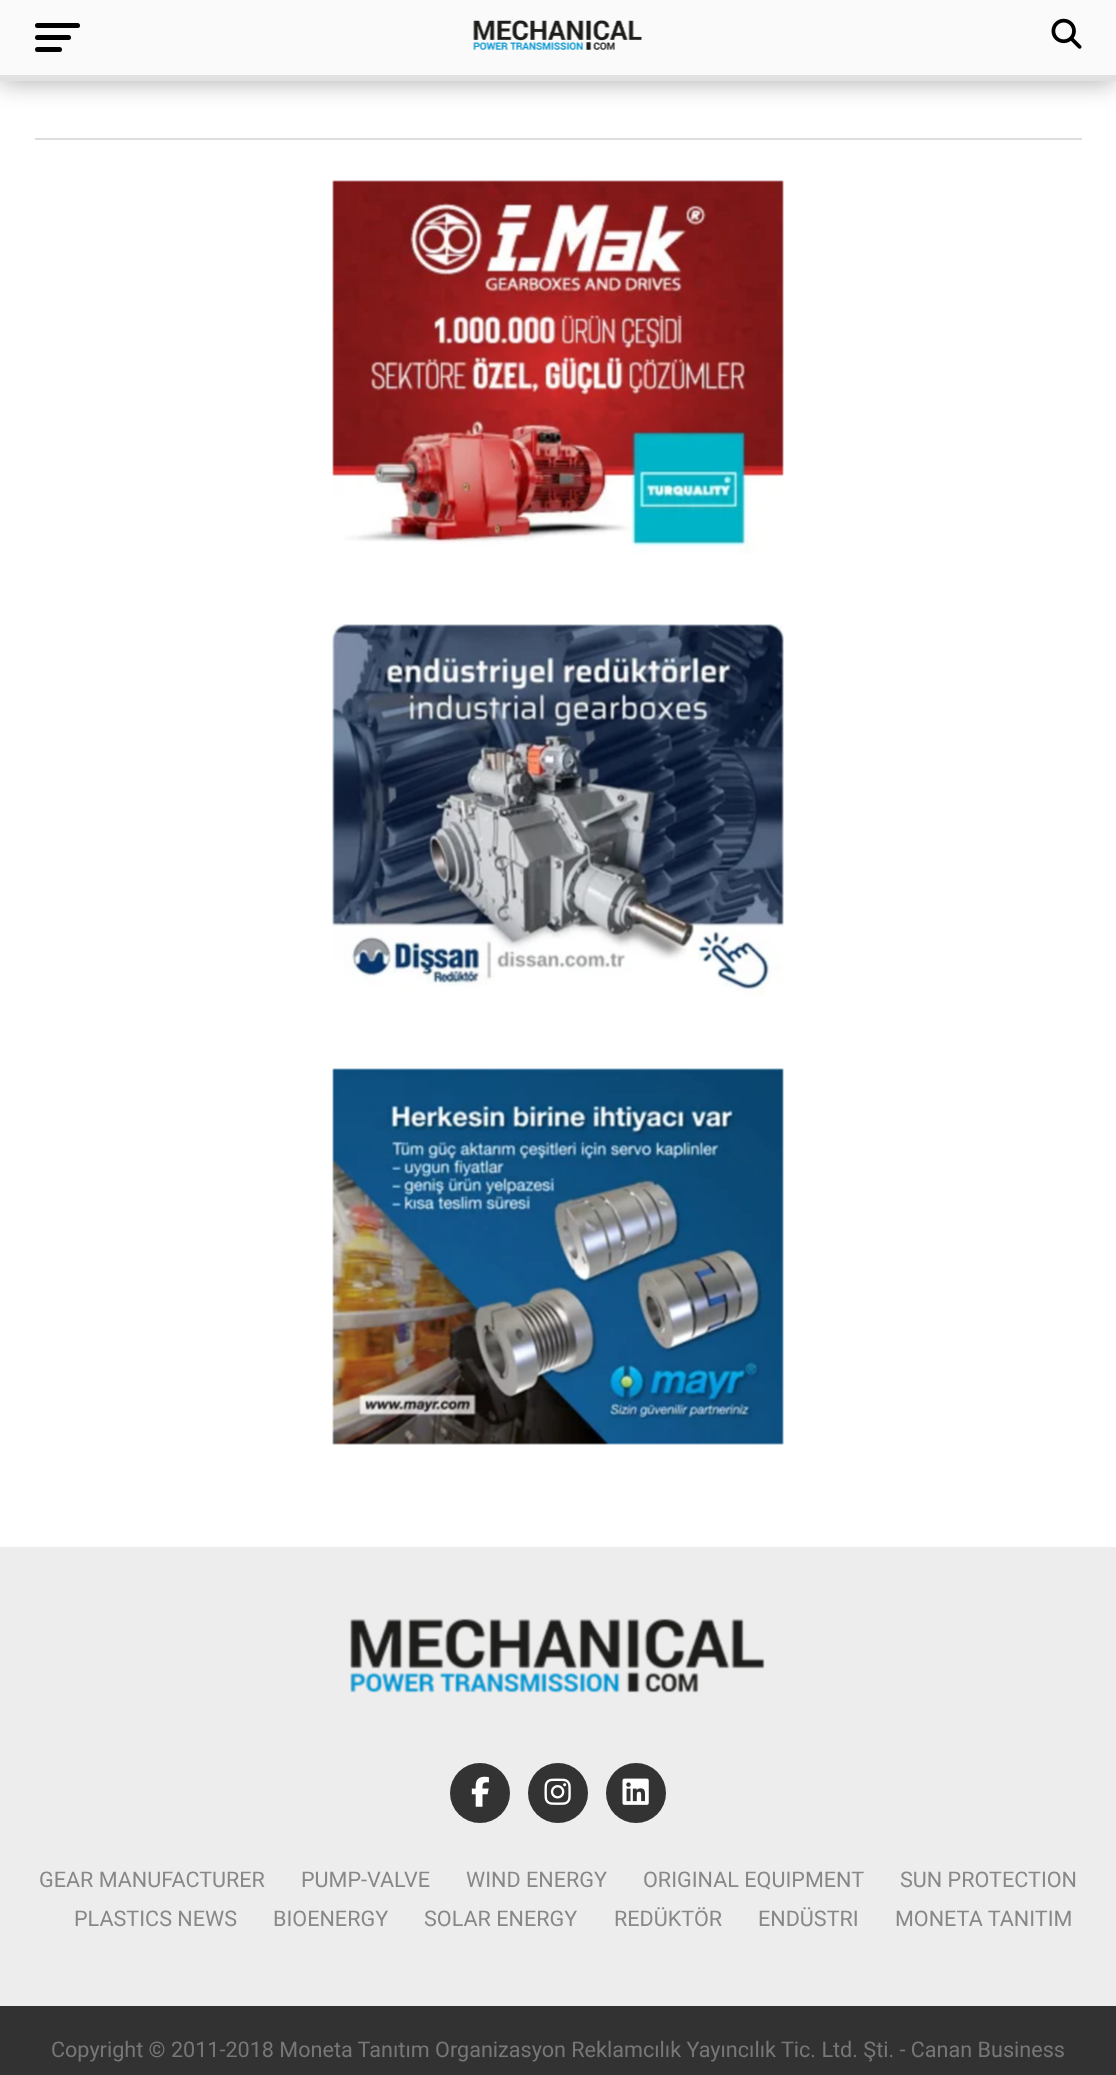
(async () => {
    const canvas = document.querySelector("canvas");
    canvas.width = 1116;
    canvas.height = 2075;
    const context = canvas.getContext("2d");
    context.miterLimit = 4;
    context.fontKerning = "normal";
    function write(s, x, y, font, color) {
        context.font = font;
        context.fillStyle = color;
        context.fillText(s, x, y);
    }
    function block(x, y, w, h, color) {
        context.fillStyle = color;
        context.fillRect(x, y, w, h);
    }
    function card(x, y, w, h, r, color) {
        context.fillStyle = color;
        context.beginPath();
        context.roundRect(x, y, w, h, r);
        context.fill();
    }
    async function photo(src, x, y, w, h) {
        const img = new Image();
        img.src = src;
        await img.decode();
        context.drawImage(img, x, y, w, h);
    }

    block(0, 0, 1116, 2075, "rgb(255, 255, 255)");
    context.fillStyle = "rgba(0, 0, 0, 0.3)";
    context.filter = "blur(12px)";
    context.beginPath();
    context.rect(0, 2, 1116, 81);
    context.fill();
    context.filter = "none";
    block(0, 0, 1116, 75, "rgb(250, 250, 250)");
    block(0, 75, 1116, 6, "rgb(225, 225, 225)");
    card(35, 23, 45, 5, 2.5, "rgb(0, 0, 0)");
    card(35, 35, 36, 5, 2.5, "rgb(0, 0, 0)");
    card(35, 47, 27, 5, 2.5, "rgb(0, 0, 0)");
    await photo("media/1.png", 473, 20, 169, 30);
    await photo("media/2.png", 1051, 18, 31, 31);
    block(35, 138, 1047, 2, "rgb(221, 221, 221)");
    await photo("media/3.png", 332, 180, 452, 375);
    await photo("media/4.png", 332, 624, 452, 372);
    await photo("media/5.png", 332, 1068, 452, 377);
    block(0, 1547, 1116, 459, "rgb(237, 237, 237)");
    await photo("media/6.png", 350, 1618, 415, 75);
    context.fillStyle = "rgb(51, 51, 51)";
    context.beginPath();
    context.arc(480, 1793, 30, 0, Math.PI * 2);
    context.fill();
    await photo("media/7.png", 471, 1776, 18, 31);
    context.beginPath();
    context.arc(558, 1793, 30, 0, Math.PI * 2);
    context.fill();
    await photo("media/8.png", 544, 1778, 27, 27);
    context.beginPath();
    context.arc(636, 1793, 30, 0, Math.PI * 2);
    context.fill();
    await photo("media/9.png", 622, 1778, 27, 27);
    write("GEAR MANUFACTURER", 39, 1887, "21.6px Roboto", "rgb(136, 136, 136)");
    write("PUMP-VALVE", 301, 1887, "21.6px Roboto", "rgb(136, 136, 136)");
    write("WIND ENERGY", 466, 1887, "21.6px Roboto", "rgb(136, 136, 136)");
    write("ORIGINAL EQUIPMENT", 643, 1887, "21.6px Roboto", "rgb(136, 136, 136)");
    write("SUN PROTECTION", 900, 1887, "21.6px Roboto", "rgb(136, 136, 136)");
    write("PLASTICS NEWS", 74, 1926, "21.6px Roboto", "rgb(136, 136, 136)");
    write("BIOENERGY", 273, 1926, "21.6px Roboto", "rgb(136, 136, 136)");
    write("SOLAR ENERGY", 424, 1926, "21.6px Roboto", "rgb(136, 136, 136)");
    write("REDÜKTÖR", 614, 1926, "21.6px Roboto", "rgb(136, 136, 136)");
    write("ENDÜSTRI", 758, 1926, "21.6px Roboto", "rgb(136, 136, 136)");
    write("MONETA TANITIM", 895, 1926, "21.6px Roboto", "rgb(136, 136, 136)");
    block(0, 2006, 1116, 69, "rgb(50, 50, 50)");
    write("Copyright © 2011-2018 Moneta Tanıtım Organizasyon Reklamcılık Yayıncılık Tic. Ltd. Şti. - Canan Business", 51, 2057, "21.6px Roboto", "rgb(119, 119, 119)");
})();
